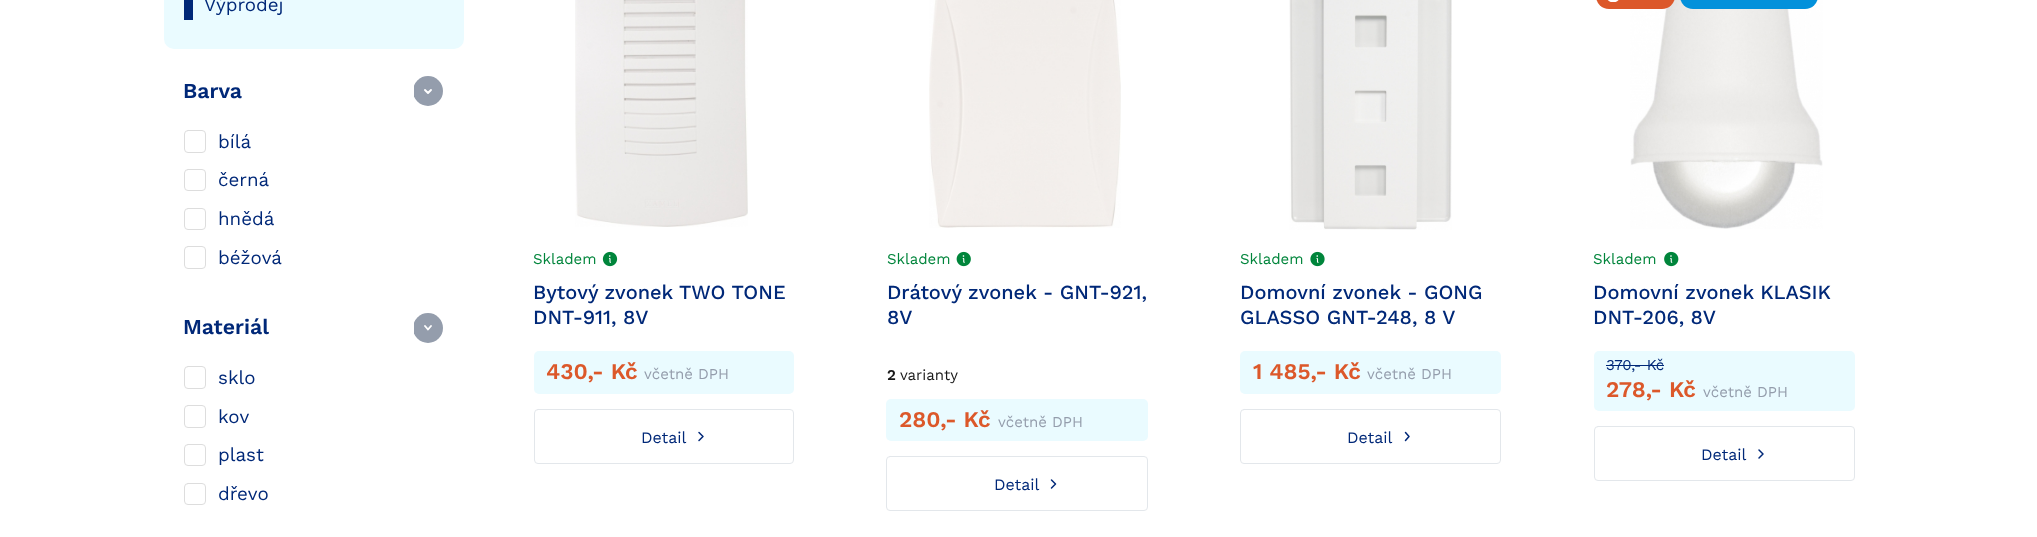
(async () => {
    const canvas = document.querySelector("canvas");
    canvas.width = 2037;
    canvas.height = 537;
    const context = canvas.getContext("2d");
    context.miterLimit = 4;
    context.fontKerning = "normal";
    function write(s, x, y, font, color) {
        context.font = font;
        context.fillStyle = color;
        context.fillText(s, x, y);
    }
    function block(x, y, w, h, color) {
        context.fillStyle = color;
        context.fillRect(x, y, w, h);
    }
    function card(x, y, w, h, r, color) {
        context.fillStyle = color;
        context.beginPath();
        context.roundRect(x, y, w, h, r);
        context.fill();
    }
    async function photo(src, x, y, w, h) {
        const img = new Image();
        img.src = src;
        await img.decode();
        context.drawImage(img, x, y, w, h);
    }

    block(0, 0, 2037, 537, "rgb(255, 255, 255)");
    card(164, -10, 300, 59, 10, "rgb(234, 251, 255)");
    block(184, 0, 9, 20, "rgb(0, 40, 120)");
    write("Výprodej", 204, 11, "18.75px Work Sans", "rgb(0, 40, 120)");
    write("Barva", 183, 98, "600 21.25px Work Sans", "rgb(0, 40, 120)");
    context.save();
    context.beginPath();
    context.rect(414, 76, 30, 30);
    context.clip();
    context.fillStyle = "rgb(148, 157, 172)";
    context.beginPath();
    context.arc(428, 91, 15, 0, Math.PI * 2);
    context.fill();
    context.restore();
    context.beginPath();
    context.moveTo(431, 90);
    context.lineTo(428, 93);
    context.lineTo(425, 90);
    context.strokeStyle = "rgb(255, 255, 255)";
    context.lineWidth = 1.9;
    context.lineCap = "round";
    context.lineJoin = "round";
    context.stroke();
    context.beginPath();
    context.roundRect(184.5, 130.5, 21, 22, 3.5);
    context.strokeStyle = "rgb(221, 221, 221)";
    context.lineWidth = 1;
    context.lineJoin = "miter";
    context.stroke();
    write("bílá", 218, 148, "18.75px Work Sans", "rgb(0, 40, 120)");
    context.beginPath();
    context.roundRect(184.5, 169.5, 21, 21, 3.5);
    context.stroke();
    write("černá", 218, 186, "18.75px Work Sans", "rgb(0, 40, 120)");
    context.beginPath();
    context.roundRect(184.5, 208.5, 21, 21, 3.5);
    context.stroke();
    write("hnědá", 218, 225, "18.75px Work Sans", "rgb(0, 40, 120)");
    context.beginPath();
    context.roundRect(184.5, 246.5, 21, 22, 3.5);
    context.stroke();
    write("béžová", 218, 264, "18.75px Work Sans", "rgb(0, 40, 120)");
    write("Materiál", 183, 334, "600 21.25px Work Sans", "rgb(0, 40, 120)");
    context.save();
    context.beginPath();
    context.rect(414, 313, 30, 30);
    context.clip();
    context.fillStyle = "rgb(148, 157, 172)";
    context.beginPath();
    context.arc(428, 328, 15, 0, Math.PI * 2);
    context.fill();
    context.restore();
    context.beginPath();
    context.moveTo(431, 326);
    context.lineTo(428, 329.5);
    context.lineTo(425, 326);
    context.strokeStyle = "rgb(255, 255, 255)";
    context.lineWidth = 1.9;
    context.lineJoin = "round";
    context.stroke();
    context.beginPath();
    context.roundRect(184.5, 366.5, 21, 22, 3.5);
    context.strokeStyle = "rgb(221, 221, 221)";
    context.lineWidth = 1;
    context.lineJoin = "miter";
    context.stroke();
    write("sklo", 218, 384, "18.75px Work Sans", "rgb(0, 40, 120)");
    context.beginPath();
    context.roundRect(184.5, 405.5, 21, 22, 3.5);
    context.stroke();
    write("kov", 218, 423, "18.75px Work Sans", "rgb(0, 40, 120)");
    context.beginPath();
    context.roundRect(184.5, 444.5, 21, 21, 3.5);
    context.stroke();
    write("plast", 218, 461, "18.75px Work Sans", "rgb(0, 40, 120)");
    context.beginPath();
    context.roundRect(184.5, 483.5, 21, 21, 3.5);
    context.stroke();
    write("dřevo", 218, 500, "18.75px Work Sans", "rgb(0, 40, 120)");
    await photo("media/1.png", 575, 0, 173, 227);
    write("Skladem", 533, 264, "15px Work Sans", "rgb(0, 133, 59)");
    await photo("media/2.png", 602, 251, 16, 16);
    write("Bytový zvonek TWO TONE", 533, 299, "500 20px Work Sans", "rgb(0, 40, 120)");
    write("DNT-911, 8V", 533, 324, "500 20px Work Sans", "rgb(0, 40, 120)");
    card(534, 351, 260, 43, 5, "rgb(234, 251, 255)");
    write("430,- Kč", 546, 379, "600 22.5px Work Sans", "rgb(220, 88, 42)");
    write("včetně DPH", 644, 379, "15px Work Sans", "rgb(148, 157, 172)");
    context.beginPath();
    context.moveTo(699, 432.5);
    context.lineTo(703, 436.5);
    context.lineTo(699, 440.5);
    context.strokeStyle = "rgb(0, 40, 120)";
    context.lineWidth = 1.5;
    context.lineJoin = "round";
    context.stroke();
    context.beginPath();
    context.roundRect(534.5, 409.5, 259, 54, 3.5);
    context.strokeStyle = "rgb(227, 231, 235)";
    context.lineWidth = 1;
    context.lineJoin = "miter";
    context.stroke();
    write("Detail", 641, 443, "16px Work Sans", "rgb(0, 40, 120)");
    await photo("media/3.png", 929, 0, 192, 228);
    write("Skladem", 887, 264, "15px Work Sans", "rgb(0, 133, 59)");
    await photo("media/4.png", 956, 251, 15, 16);
    write("Drátový zvonek - GNT-921,", 887, 299, "500 20px Work Sans", "rgb(0, 40, 120)");
    write("8V", 887, 324, "500 20px Work Sans", "rgb(0, 40, 120)");
    write("2", 887, 380, "600 15px Work Sans", "rgb(24, 24, 24)");
    write("varianty", 900, 380, "15px Work Sans", "rgb(24, 24, 24)");
    card(886, 399, 262, 42, 5, "rgb(234, 251, 255)");
    write("280,- Kč", 899, 427, "600 22.5px Work Sans", "rgb(220, 88, 42)");
    write("včetně DPH", 998, 427, "15px Work Sans", "rgb(148, 157, 172)");
    context.beginPath();
    context.moveTo(1051.5, 480);
    context.lineTo(1055.5, 484);
    context.lineTo(1051.5, 488);
    context.strokeStyle = "rgb(0, 40, 120)";
    context.lineWidth = 1.5;
    context.lineJoin = "round";
    context.stroke();
    context.beginPath();
    context.roundRect(886.5, 456.5, 261, 54, 3.5);
    context.strokeStyle = "rgb(227, 231, 235)";
    context.lineWidth = 1;
    context.lineJoin = "miter";
    context.stroke();
    write("Detail", 994, 490, "16px Work Sans", "rgb(0, 40, 120)");
    await photo("media/5.png", 1289, 0, 163, 230);
    write("Skladem", 1240, 264, "15px Work Sans", "rgb(0, 133, 59)");
    await photo("media/6.png", 1310, 251, 15, 16);
    write("Domovní zvonek - GONG", 1240, 299, "500 20px Work Sans", "rgb(0, 40, 120)");
    write("GLASSO GNT-248, 8 V", 1240, 324, "500 20px Work Sans", "rgb(0, 40, 120)");
    card(1240, 351, 261, 43, 5, "rgb(234, 251, 255)");
    write("1 485,- Kč", 1253, 379, "600 22.5px Work Sans", "rgb(220, 88, 42)");
    write("včetně DPH", 1367, 379, "15px Work Sans", "rgb(148, 157, 172)");
    context.beginPath();
    context.moveTo(1405.5, 432.5);
    context.lineTo(1409, 436.5);
    context.lineTo(1405.5, 440.5);
    context.strokeStyle = "rgb(0, 40, 120)";
    context.lineWidth = 1.5;
    context.lineJoin = "round";
    context.stroke();
    context.beginPath();
    context.roundRect(1240.5, 409.5, 260, 54, 3.5);
    context.strokeStyle = "rgb(227, 231, 235)";
    context.lineWidth = 1;
    context.lineJoin = "miter";
    context.stroke();
    write("Detail", 1347, 443, "16px Work Sans", "rgb(0, 40, 120)");
    await photo("media/7.png", 1630, 0, 193, 229);
    card(1596, -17, 79, 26, 16.5, "rgb(220, 88, 42)");
    await photo("media/8.png", 1607, 0, 12, 2);
    card(1680, -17, 138, 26, 16.5, "rgb(3, 145, 219)");
    write("Skladem", 1593, 264, "15px Work Sans", "rgb(0, 133, 59)");
    await photo("media/9.png", 1664, 251, 15, 16);
    write("Domovní zvonek KLASIK", 1593, 299, "500 20px Work Sans", "rgb(0, 40, 120)");
    write("DNT-206, 8V", 1593, 324, "500 20px Work Sans", "rgb(0, 40, 120)");
    card(1594, 351, 261, 60, 5, "rgb(234, 251, 255)");
    write("370,- Kč", 1606, 370, "15px Work Sans", "rgb(0, 40, 120)");
    block(1606, 365, 58, 1, "rgb(0, 40, 120)");
    write("278,- Kč", 1606, 397, "600 22.5px Work Sans", "rgb(220, 88, 42)");
    write("včetně DPH", 1703, 397, "15px Work Sans", "rgb(148, 157, 172)");
    context.beginPath();
    context.moveTo(1759, 450);
    context.lineTo(1763, 454);
    context.lineTo(1759, 458);
    context.strokeStyle = "rgb(0, 40, 120)";
    context.lineWidth = 1.5;
    context.lineJoin = "round";
    context.stroke();
    context.beginPath();
    context.roundRect(1594.5, 426.5, 260, 54, 3.5);
    context.strokeStyle = "rgb(227, 231, 235)";
    context.lineWidth = 1;
    context.lineJoin = "miter";
    context.stroke();
    write("Detail", 1701, 460, "16px Work Sans", "rgb(0, 40, 120)");
})();
